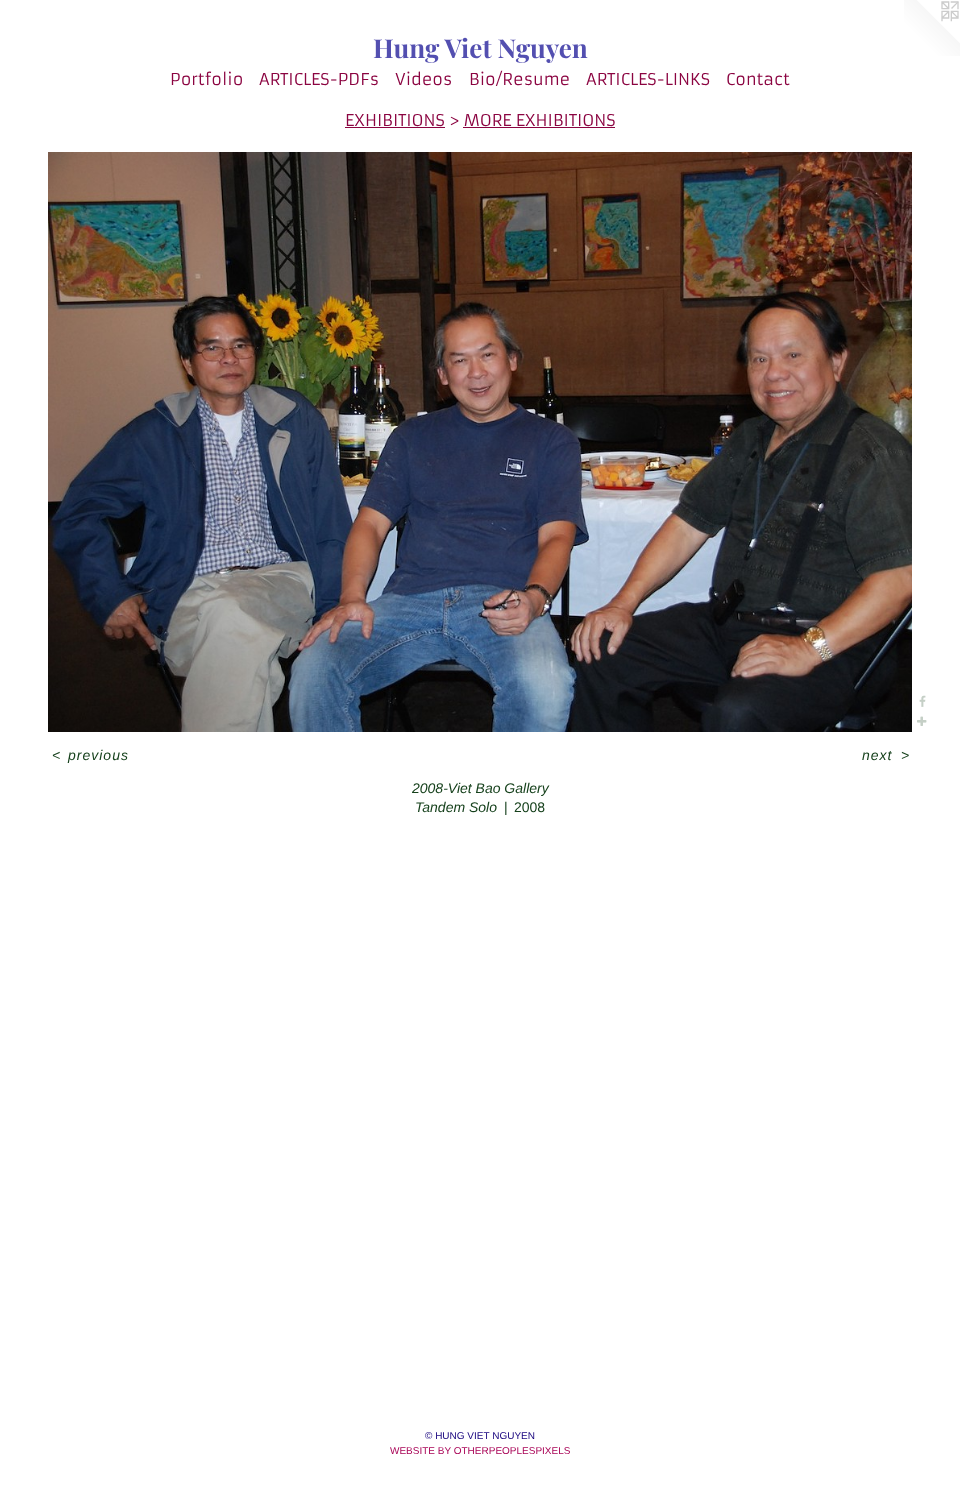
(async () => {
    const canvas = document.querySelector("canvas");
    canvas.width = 960;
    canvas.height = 1508;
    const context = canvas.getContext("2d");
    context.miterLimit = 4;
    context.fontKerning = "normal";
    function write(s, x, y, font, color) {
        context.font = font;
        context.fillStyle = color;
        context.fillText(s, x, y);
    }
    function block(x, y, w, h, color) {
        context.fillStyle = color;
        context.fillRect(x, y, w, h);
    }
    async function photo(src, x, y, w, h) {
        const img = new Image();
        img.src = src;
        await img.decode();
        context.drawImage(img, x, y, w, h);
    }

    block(0, 0, 960, 1508, "rgb(255, 255, 255)");
    write("Hung Viet Nguyen", 373, 58, "bold 26px Playfair Display", "rgb(83, 79, 176)");
    await photo("media/1.png", 904, 0, 56, 56);
    write("Portfolio", 170, 85, "16px Armata", "rgb(139, 4, 65)");
    write("ARTICLES-PDFs", 259, 85, "16px Armata", "rgb(139, 4, 65)");
    write("Videos", 395, 85, "16px Armata", "rgb(139, 4, 65)");
    write("Bio/Resume", 469, 85, "16px Armata", "rgb(139, 4, 65)");
    write("ARTICLES-LINKS", 586, 85, "16px Armata", "rgb(139, 4, 65)");
    write("Contact", 726, 85, "16px Armata", "rgb(139, 4, 65)");
    write("EXHIBITIONS > MORE EXHIBITIONS", 345, 126, "16px Armata", "rgb(139, 4, 65)");
    block(345, 127, 100, 1, "rgb(139, 4, 65)");
    block(463, 127, 152, 1, "rgb(139, 4, 65)");
    await photo("media/2.png", 48, 152, 864, 580);
    await photo("media/3.png", 919, 695, 7, 12);
    await photo("media/4.png", 917, 716, 10, 10);
    context.letterSpacing = "1px";
    write("<", 52, 760, "italic 14px Liberation Sans", "rgb(22, 65, 28)");
    write("previous", 68, 760, "italic 14px Liberation Sans", "rgb(22, 65, 28)");
    write("next", 862, 760, "italic 14px Liberation Sans", "rgb(22, 65, 28)");
    write(">", 901, 760, "italic 14px Liberation Sans", "rgb(22, 65, 28)");
    context.letterSpacing = "0px";
    write("2008-Viet Bao Gallery", 412, 793, "italic 14px Liberation Sans", "rgb(22, 65, 28)");
    write("Tandem Solo", 415, 812, "italic 14px Liberation Sans", "rgb(22, 65, 28)");
    write("|", 504, 812, "14px Liberation Sans", "rgb(22, 65, 28)");
    write("2008", 514, 812, "14px Liberation Sans", "rgb(22, 65, 28)");
    write("© HUNG VIET NGUYEN", 425, 1439, "10px Liberation Sans", "rgb(26, 6, 127)");
    write("WEBSITE BY OTHERPEOPLESPIXELS", 390, 1454, "10px Liberation Sans", "rgb(169, 4, 87)");
})();
